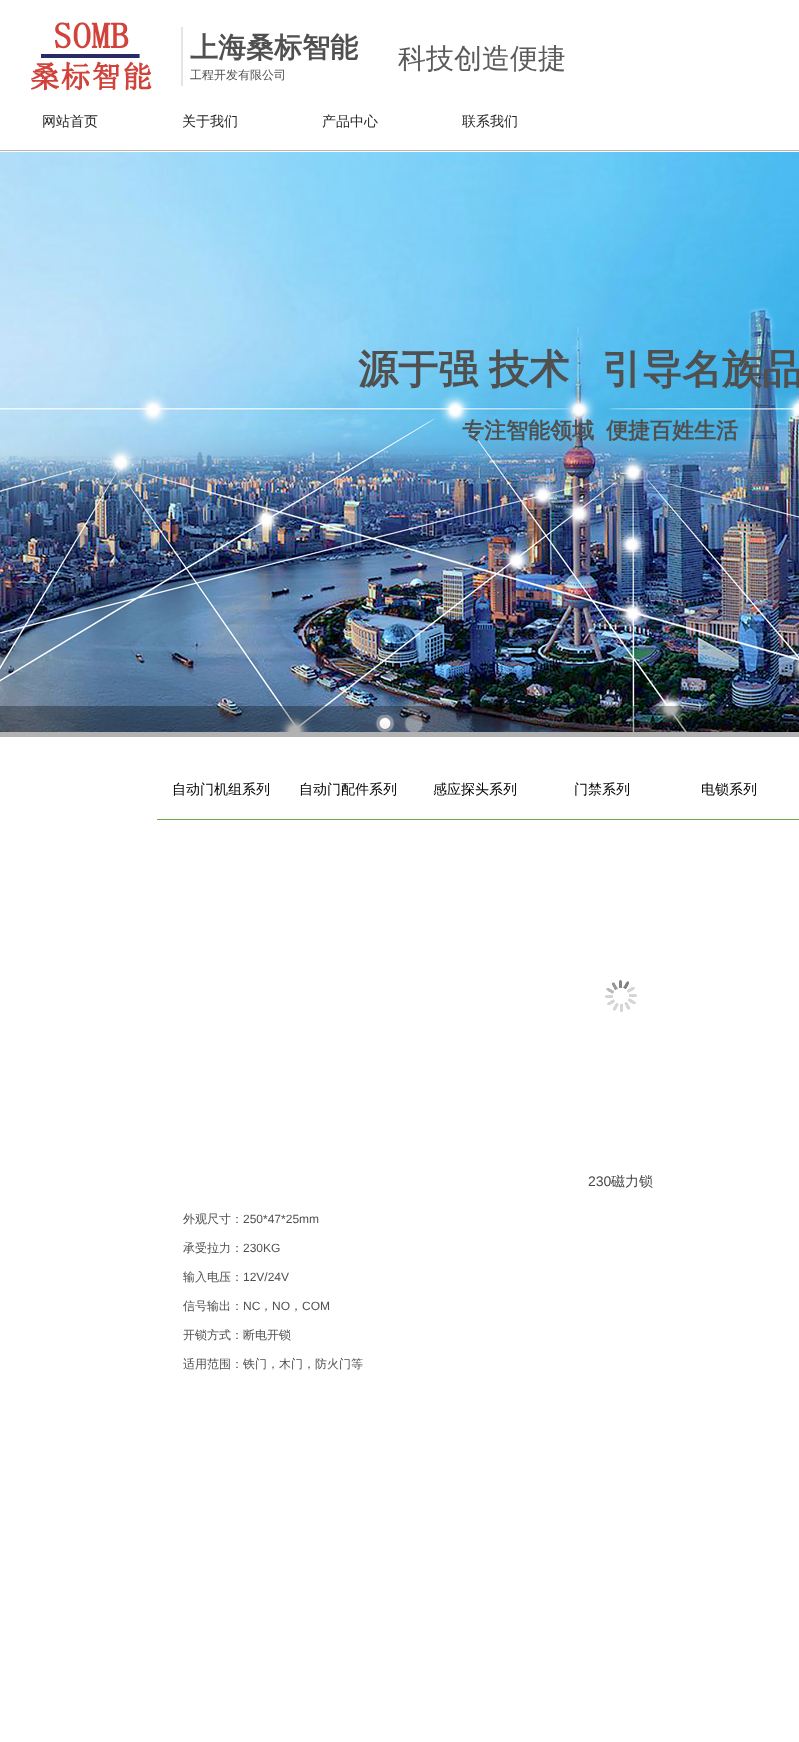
(async () => {
    const canvas = document.querySelector("canvas");
    canvas.width = 799;
    canvas.height = 1742;
    const context = canvas.getContext("2d");
    context.miterLimit = 4;
    context.fontKerning = "normal";
    function write(s, x, y, font, color) {
        context.font = font;
        context.fillStyle = color;
        context.fillText(s, x, y);
    }
    function block(x, y, w, h, color) {
        context.fillStyle = color;
        context.fillRect(x, y, w, h);
    }
    async function photo(src, x, y, w, h) {
        const img = new Image();
        img.src = src;
        await img.decode();
        context.drawImage(img, x, y, w, h);
    }

    block(0, 0, 799, 1742, "rgb(255, 255, 255)");
    await photo("media/1.png", 0, 27, 799, 124);
    await photo("media/2.png", 31, 22, 121, 71);
    write("上海桑标智能", 190, 57, "bold 28px WenQuanYi Zen Hei", "rgb(80, 80, 80)");
    write("工程开发有限公司", 190, 79, "500 12px WenQuanYi Zen Hei", "rgb(80, 80, 80)");
    write("科技创造便捷", 398, 68, "500 28px WenQuanYi Zen Hei", "rgb(90, 90, 90)");
    write("网站首页", 42, 126, "500 14px WenQuanYi Zen Hei", "rgb(33, 31, 33)");
    write("关于我们", 182, 126, "500 14px WenQuanYi Zen Hei", "rgb(33, 31, 33)");
    write("产品中心", 322, 126, "500 14px WenQuanYi Zen Hei", "rgb(33, 31, 33)");
    write("联系我们", 462, 126, "500 14px WenQuanYi Zen Hei", "rgb(33, 31, 33)");
    await photo("media/3.png", 0, 152, 799, 580);
    block(0, 706, 799, 31, "rgba(0, 0, 0, 0.3)");
    await photo("media/4.png", 375, 712, 20, 20);
    await photo("media/5.png", 404, 714, 20, 18);
    write("源于强", 358, 383, "bold 40px WenQuanYi Zen Hei", "rgb(80, 80, 80)");
    write("技术", 489, 383, "bold 40px WenQuanYi Zen Hei", "rgb(80, 80, 80)");
    write("引导名族品", 602, 383, "bold 40px WenQuanYi Zen Hei", "rgb(80, 80, 80)");
    write("专注智能领域", 462, 438, "bold 22px WenQuanYi Zen Hei", "rgb(80, 80, 80)");
    write("便捷百姓生活", 606, 438, "bold 22px WenQuanYi Zen Hei", "rgb(80, 80, 80)");
    block(157, 819, 642, 1, "rgb(106, 168, 79)");
    write("自动门机组系列", 172, 794, "500 14px WenQuanYi Zen Hei", "rgb(0, 0, 0)");
    write("自动门配件系列", 299, 794, "500 14px WenQuanYi Zen Hei", "rgb(0, 0, 0)");
    write("感应探头系列", 433, 794, "500 14px WenQuanYi Zen Hei", "rgb(0, 0, 0)");
    write("门禁系列", 574, 794, "500 14px WenQuanYi Zen Hei", "rgb(0, 0, 0)");
    write("电锁系列", 701, 794, "500 14px WenQuanYi Zen Hei", "rgb(0, 0, 0)");
    await photo("media/6.png", 605, 980, 32, 32);
    write("230", 588, 1186, "14px Liberation Sans", "rgb(71, 71, 71)");
    write("磁力锁", 611, 1186, "500 14px WenQuanYi Zen Hei", "rgb(71, 71, 71)");
    write("外观尺寸：", 183, 1223, "500 12px WenQuanYi Zen Hei", "rgb(80, 80, 80)");
    write("250*47*25mm", 243, 1223, "12px Liberation Sans", "rgb(80, 80, 80)");
    write("承受拉力：", 183, 1252, "500 12px WenQuanYi Zen Hei", "rgb(80, 80, 80)");
    write("230KG", 243, 1252, "12px Liberation Sans", "rgb(80, 80, 80)");
    write("输入电压：", 183, 1281, "500 12px WenQuanYi Zen Hei", "rgb(80, 80, 80)");
    write("12V/24V", 243, 1281, "12px Liberation Sans", "rgb(80, 80, 80)");
    write("信号输出：", 183, 1310, "500 12px WenQuanYi Zen Hei", "rgb(80, 80, 80)");
    write("NC", 243, 1310, "12px Liberation Sans", "rgb(80, 80, 80)");
    write("，", 260, 1310, "500 12px WenQuanYi Zen Hei", "rgb(80, 80, 80)");
    write("NO", 272, 1310, "12px Liberation Sans", "rgb(80, 80, 80)");
    write("，", 290, 1310, "500 12px WenQuanYi Zen Hei", "rgb(80, 80, 80)");
    write("COM", 302, 1310, "12px Liberation Sans", "rgb(80, 80, 80)");
    write("开锁方式：断电开锁", 183, 1339, "500 12px WenQuanYi Zen Hei", "rgb(80, 80, 80)");
    write("适用范围：铁门，木门，防火门等", 183, 1368, "500 12px WenQuanYi Zen Hei", "rgb(80, 80, 80)");
})();
